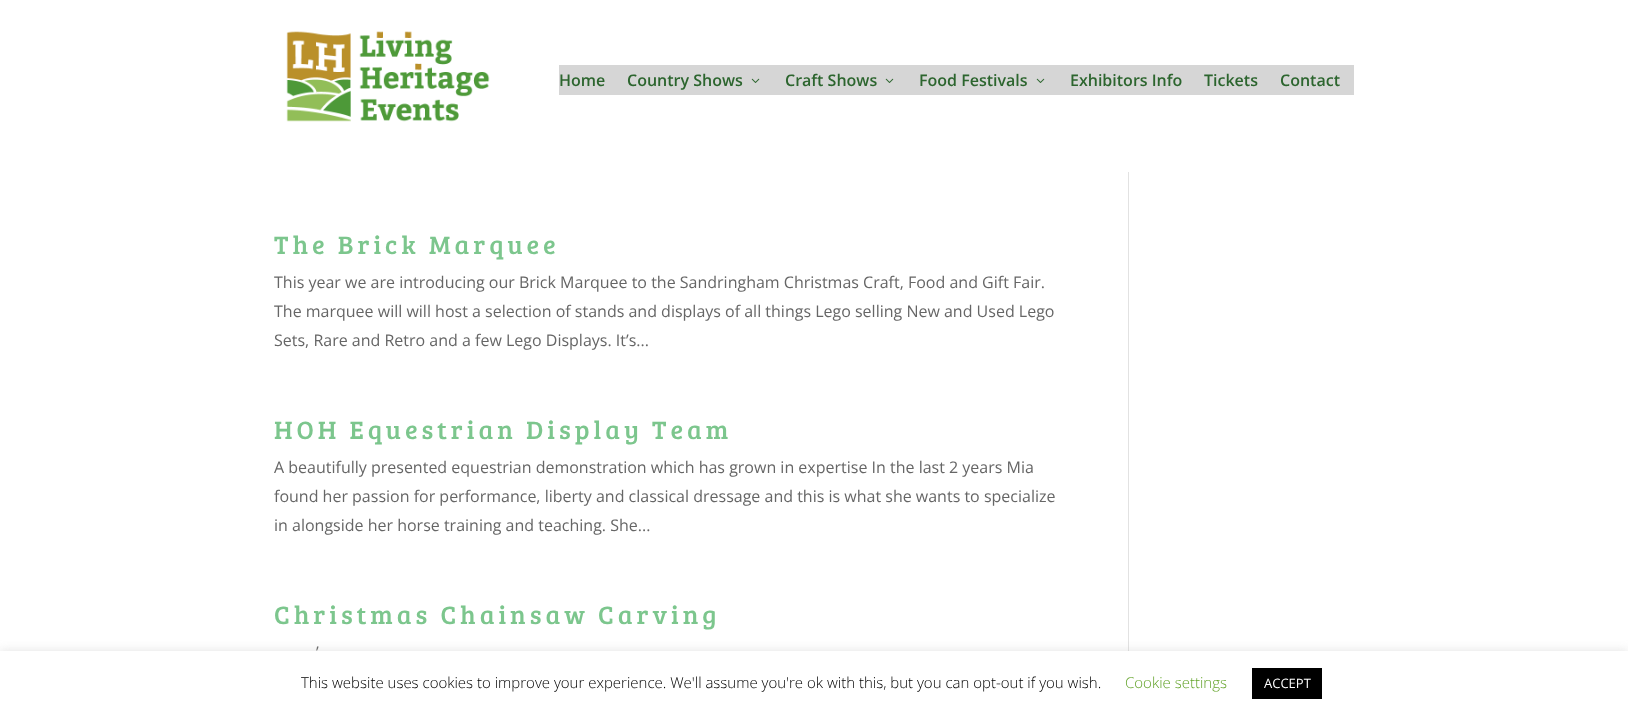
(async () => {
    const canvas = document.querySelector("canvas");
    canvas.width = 1628;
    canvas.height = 716;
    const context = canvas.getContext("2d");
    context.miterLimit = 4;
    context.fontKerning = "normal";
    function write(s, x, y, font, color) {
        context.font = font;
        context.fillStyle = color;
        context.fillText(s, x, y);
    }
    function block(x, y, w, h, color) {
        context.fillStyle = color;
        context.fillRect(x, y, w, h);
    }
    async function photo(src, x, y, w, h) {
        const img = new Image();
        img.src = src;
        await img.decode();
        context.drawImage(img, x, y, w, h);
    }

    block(0, 0, 1628, 716, "rgb(255, 255, 255)");
    await photo("media/1.png", 286, 31, 204, 91);
    block(559, 65, 795, 30, "rgb(214, 214, 214)");
    write("Home", 559, 86, "600 16px Open Sans", "rgb(44, 101, 46)");
    write("Country Shows", 627, 86, "600 16px Open Sans", "rgb(44, 101, 46)");
    await photo("media/2.png", 751, 78, 9, 5);
    write("Craft Shows", 785, 86, "600 16px Open Sans", "rgb(44, 101, 46)");
    await photo("media/2.png", 885, 78, 9, 5);
    write("Food Festivals", 919, 86, "600 16px Open Sans", "rgb(44, 101, 46)");
    await photo("media/2.png", 1036, 78, 9, 5);
    write("Exhibitors Info", 1070, 86, "600 16px Open Sans", "rgb(44, 101, 46)");
    write("Tickets", 1204, 86, "600 16px Open Sans", "rgb(44, 101, 46)");
    write("Contact", 1280, 86, "600 16px Open Sans", "rgb(44, 101, 46)");
    context.letterSpacing = "4px";
    write("The Brick Marquee", 274, 254, "26px Bree Serif", "rgb(124, 198, 141)");
    context.letterSpacing = "0px";
    write("This year we are introducing our Brick Marquee to the Sandringham Christmas Craft, Food and Gift Fair.", 274, 288, "16px Open Sans", "rgb(102, 102, 102)");
    write("The marquee will will host a selection of stands and displays of all things Lego selling New and Used Lego", 274, 317, "16px Open Sans", "rgb(102, 102, 102)");
    write("Sets, Rare and Retro and a few Lego Displays. It’s...", 274, 346, "16px Open Sans", "rgb(102, 102, 102)");
    context.letterSpacing = "4px";
    write("HOH Equestrian Display Team", 274, 439, "26px Bree Serif", "rgb(124, 198, 141)");
    context.letterSpacing = "0px";
    write("A beautifully presented equestrian demonstration which has grown in expertise In the last 2 years Mia", 274, 473, "16px Open Sans", "rgb(102, 102, 102)");
    write("found her passion for performance, liberty and classical dressage and this is what she wants to specialize", 274, 502, "16px Open Sans", "rgb(102, 102, 102)");
    write("in alongside her horse training and teaching. She...", 274, 531, "16px Open Sans", "rgb(102, 102, 102)");
    context.letterSpacing = "4px";
    write("Christmas Chainsaw Carving", 274, 624, "26px Bree Serif", "rgb(124, 198, 141)");
    context.letterSpacing = "0px";
    write("’", 316, 658, "16px Open Sans", "rgb(102, 102, 102)");
    block(1128, 172, 1, 479, "rgb(226, 226, 226)");
    context.fillStyle = "rgba(172, 171, 171, 0.3)";
    context.filter = "blur(5px)";
    context.beginPath();
    context.rect(0, 650, 1628, 65);
    context.fill();
    context.filter = "none";
    block(0, 651, 1628, 65, "rgb(255, 255, 255)");
    write("This website uses cookies to improve your experience. We'll assume you're ok with this, but you can opt-out if you wish.", 301, 688, "300 15px Open Sans", "rgb(0, 0, 0)");
    write("Cookie settings", 1125, 688, "300 15px Open Sans", "rgb(98, 163, 41)");
    block(1252, 668, 70, 31, "rgb(0, 0, 0)");
    write("ACCEPT", 1264, 688, "13px Open Sans", "rgb(255, 255, 255)");
})();
